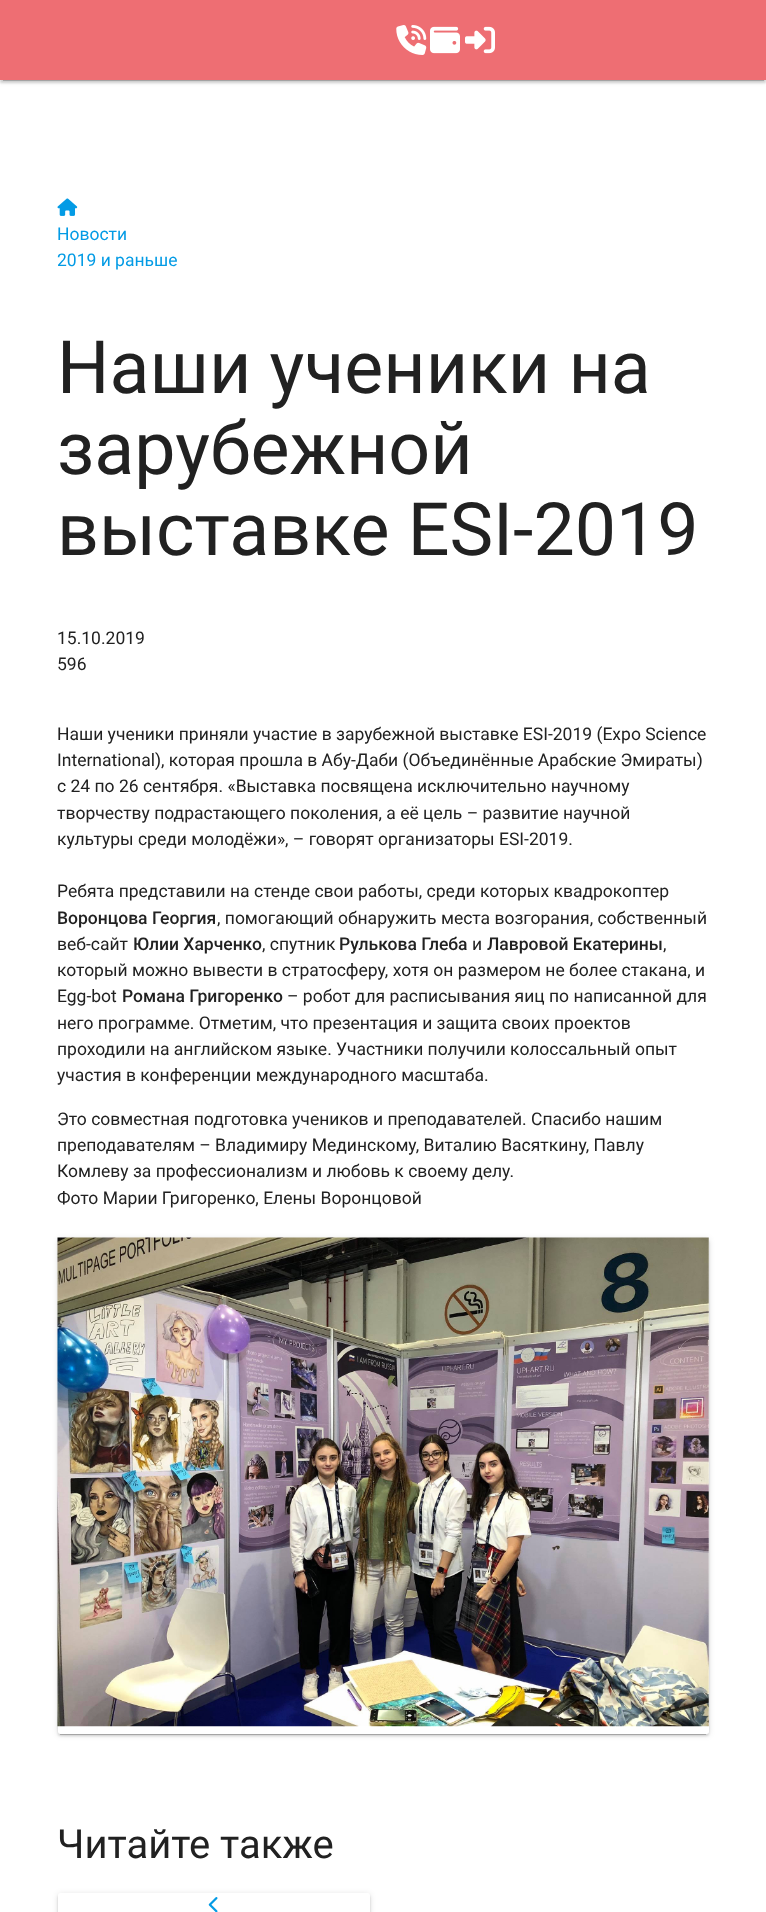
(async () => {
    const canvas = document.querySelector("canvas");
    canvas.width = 766;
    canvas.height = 1912;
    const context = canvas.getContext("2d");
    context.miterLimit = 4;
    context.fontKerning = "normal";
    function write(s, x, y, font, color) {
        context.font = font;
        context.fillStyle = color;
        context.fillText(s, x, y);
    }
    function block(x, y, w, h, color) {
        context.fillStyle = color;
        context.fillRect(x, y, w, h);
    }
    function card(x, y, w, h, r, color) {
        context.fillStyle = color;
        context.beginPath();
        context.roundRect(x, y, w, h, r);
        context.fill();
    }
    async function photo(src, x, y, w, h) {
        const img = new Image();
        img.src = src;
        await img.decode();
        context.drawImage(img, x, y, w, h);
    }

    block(0, 0, 766, 1912, "rgb(255, 255, 255)");
    context.fillStyle = "rgba(0, 0, 0, 0.2)";
    context.filter = "blur(0.5px)";
    context.beginPath();
    context.rect(3, 6, 761, 75);
    context.fill();
    context.filter = "none";
    context.fillStyle = "rgba(0, 0, 0, 0.12)";
    context.filter = "blur(3px)";
    context.beginPath();
    context.rect(0, 1, 766, 80);
    context.fill();
    context.filter = "none";
    context.fillStyle = "rgba(0, 0, 0, 0.14)";
    context.filter = "blur(1px)";
    context.beginPath();
    context.rect(0, 3, 766, 80);
    context.fill();
    context.filter = "none";
    block(0, 0, 766, 80, "rgb(238, 110, 115)");
    await photo("media/1.png", 396, 25, 31, 30);
    await photo("media/2.png", 430, 26, 30, 28);
    await photo("media/3.png", 465, 26, 30, 28);
    await photo("media/4.png", 57, 198, 21, 18);
    write("Новости", 57, 240, "17.5px Roboto", "rgb(3, 155, 229)");
    write("2019 и раньше", 57, 266, "17.5px Roboto", "rgb(3, 155, 229)");
    write("Наши ученики на", 57, 393, "73.5px Roboto", "rgb(33, 33, 33)");
    write("зарубежной", 57, 474, "73.5px Roboto", "rgb(33, 33, 33)");
    write("выставке ESI-2019", 57, 555, "73.5px Roboto", "rgb(33, 33, 33)");
    write("15.10.2019", 57, 644, "17.5px Roboto", "rgb(33, 33, 33)");
    write("596", 57, 670, "17.5px Roboto", "rgb(33, 33, 33)");
    write("Наши ученики приняли участие в зарубежной выставке ESI-2019 (Expo Science", 57, 740, "17.5px Roboto", "rgb(33, 33, 33)");
    write("International), которая прошла в Абу-Даби (Объединённые Арабские Эмираты)", 57, 766, "17.5px Roboto", "rgb(33, 33, 33)");
    write("с 24 по 26 сентября. «Выставка посвящена исключительно научному", 57, 792, "17.5px Roboto", "rgb(33, 33, 33)");
    write("творчеству подрастающего поколения, а её цель – развитие научной", 57, 819, "17.5px Roboto", "rgb(33, 33, 33)");
    write("культуры среди молодёжи», – говорят организаторы ESI-2019.", 57, 845, "17.5px Roboto", "rgb(33, 33, 33)");
    write("Ребята представили на стенде свои работы, среди которых квадрокоптер", 57, 897, "17.5px Roboto", "rgb(33, 33, 33)");
    write("Воронцова Георгия", 57, 924, "500 17.5px Roboto", "rgb(33, 33, 33)");
    write(", помогающий обнаружить места возгорания, собственный", 217, 924, "17.5px Roboto", "rgb(33, 33, 33)");
    write("веб-сайт", 57, 950, "17.5px Roboto", "rgb(33, 33, 33)");
    write("Юлии Харченко", 133, 950, "500 17.5px Roboto", "rgb(33, 33, 33)");
    write(", спутник", 262, 950, "17.5px Roboto", "rgb(33, 33, 33)");
    write("Рулькова Глеба", 339, 950, "500 17.5px Roboto", "rgb(33, 33, 33)");
    write("и", 472, 950, "17.5px Roboto", "rgb(33, 33, 33)");
    write("Лавровой Екатерины", 487, 950, "500 17.5px Roboto", "rgb(33, 33, 33)");
    write(",", 663, 950, "17.5px Roboto", "rgb(33, 33, 33)");
    write("который можно вывести в стратосферу, хотя он размером не более стакана, и", 57, 976, "17.5px Roboto", "rgb(33, 33, 33)");
    write("Egg-bot", 57, 1002, "17.5px Roboto", "rgb(33, 33, 33)");
    write("Романа Григоренко", 122, 1002, "500 17.5px Roboto", "rgb(33, 33, 33)");
    write("– робот для расписывания яиц по написанной для", 287, 1002, "17.5px Roboto", "rgb(33, 33, 33)");
    write("него программе. Отметим, что презентация и защита своих проектов", 57, 1029, "17.5px Roboto", "rgb(33, 33, 33)");
    write("проходили на английском языке. Участники получили колоссальный опыт", 57, 1055, "17.5px Roboto", "rgb(33, 33, 33)");
    write("участия в конференции международного масштаба.", 57, 1081, "17.5px Roboto", "rgb(33, 33, 33)");
    write("Это совместная подготовка учеников и преподавателей. Спасибо нашим", 57, 1125, "17.5px Roboto", "rgb(33, 33, 33)");
    write("преподавателям – Владимиру Мединскому, Виталию Васяткину, Павлу", 57, 1151, "17.5px Roboto", "rgb(33, 33, 33)");
    write("Комлеву за профессионализм и любовь к своему делу.", 57, 1177, "17.5px Roboto", "rgb(33, 33, 33)");
    write("Фото Марии Григоренко, Елены Воронцовой", 57, 1204, "17.5px Roboto", "rgb(33, 33, 33)");
    context.fillStyle = "rgba(0, 0, 0, 0.2)";
    context.filter = "blur(0.5px)";
    context.beginPath();
    context.rect(60, 1244, 646, 491);
    context.fill();
    context.filter = "none";
    context.fillStyle = "rgba(0, 0, 0, 0.12)";
    context.filter = "blur(3px)";
    context.beginPath();
    context.roundRect(58, 1239, 651, 496, 2.5);
    context.fill();
    context.filter = "none";
    context.fillStyle = "rgba(0, 0, 0, 0.14)";
    context.filter = "blur(1px)";
    context.beginPath();
    context.roundRect(58, 1240, 651, 496, 2.5);
    context.fill();
    context.filter = "none";
    card(58, 1238, 651, 496, 2.5, "rgb(255, 255, 255)");
    await photo("media/5.png", 57, 1237, 652, 490);
    write("Читайте также", 57, 1858, "40px Roboto", "rgb(33, 33, 33)");
    context.save();
    context.beginPath();
    context.moveTo(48, 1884);
    context.lineTo(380, 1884);
    context.lineTo(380, 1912);
    context.lineTo(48, 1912);
    context.closePath();
    context.moveTo(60.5, 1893);
    context.lineTo(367.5, 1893);
    context.bezierCurveTo(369, 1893, 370, 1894, 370, 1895.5);
    context.lineTo(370, 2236.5);
    context.bezierCurveTo(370, 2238, 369, 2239, 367.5, 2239);
    context.lineTo(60.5, 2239);
    context.bezierCurveTo(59, 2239, 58, 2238, 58, 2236.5);
    context.lineTo(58, 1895.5);
    context.bezierCurveTo(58, 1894, 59, 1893, 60.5, 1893);
    context.closePath();
    context.clip("evenodd");
    context.fillStyle = "rgba(0, 0, 0, 0.12)";
    context.filter = "blur(3px)";
    context.beginPath();
    context.roundRect(58, 1894, 312, 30, 2.5);
    context.fill();
    context.filter = "none";
    context.restore();
    context.save();
    context.beginPath();
    context.moveTo(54, 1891);
    context.lineTo(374, 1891);
    context.lineTo(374, 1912);
    context.lineTo(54, 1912);
    context.closePath();
    context.moveTo(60.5, 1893);
    context.lineTo(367.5, 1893);
    context.bezierCurveTo(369, 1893, 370, 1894, 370, 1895.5);
    context.lineTo(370, 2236.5);
    context.bezierCurveTo(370, 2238, 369, 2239, 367.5, 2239);
    context.lineTo(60.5, 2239);
    context.bezierCurveTo(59, 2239, 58, 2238, 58, 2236.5);
    context.lineTo(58, 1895.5);
    context.bezierCurveTo(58, 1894, 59, 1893, 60.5, 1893);
    context.closePath();
    context.clip("evenodd");
    context.fillStyle = "rgba(0, 0, 0, 0.14)";
    context.filter = "blur(1px)";
    context.beginPath();
    context.roundRect(58, 1895, 312, 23, 2.5);
    context.fill();
    context.filter = "none";
    context.restore();
    await photo("media/6.png", 208, 1897, 10, 15);
})();
